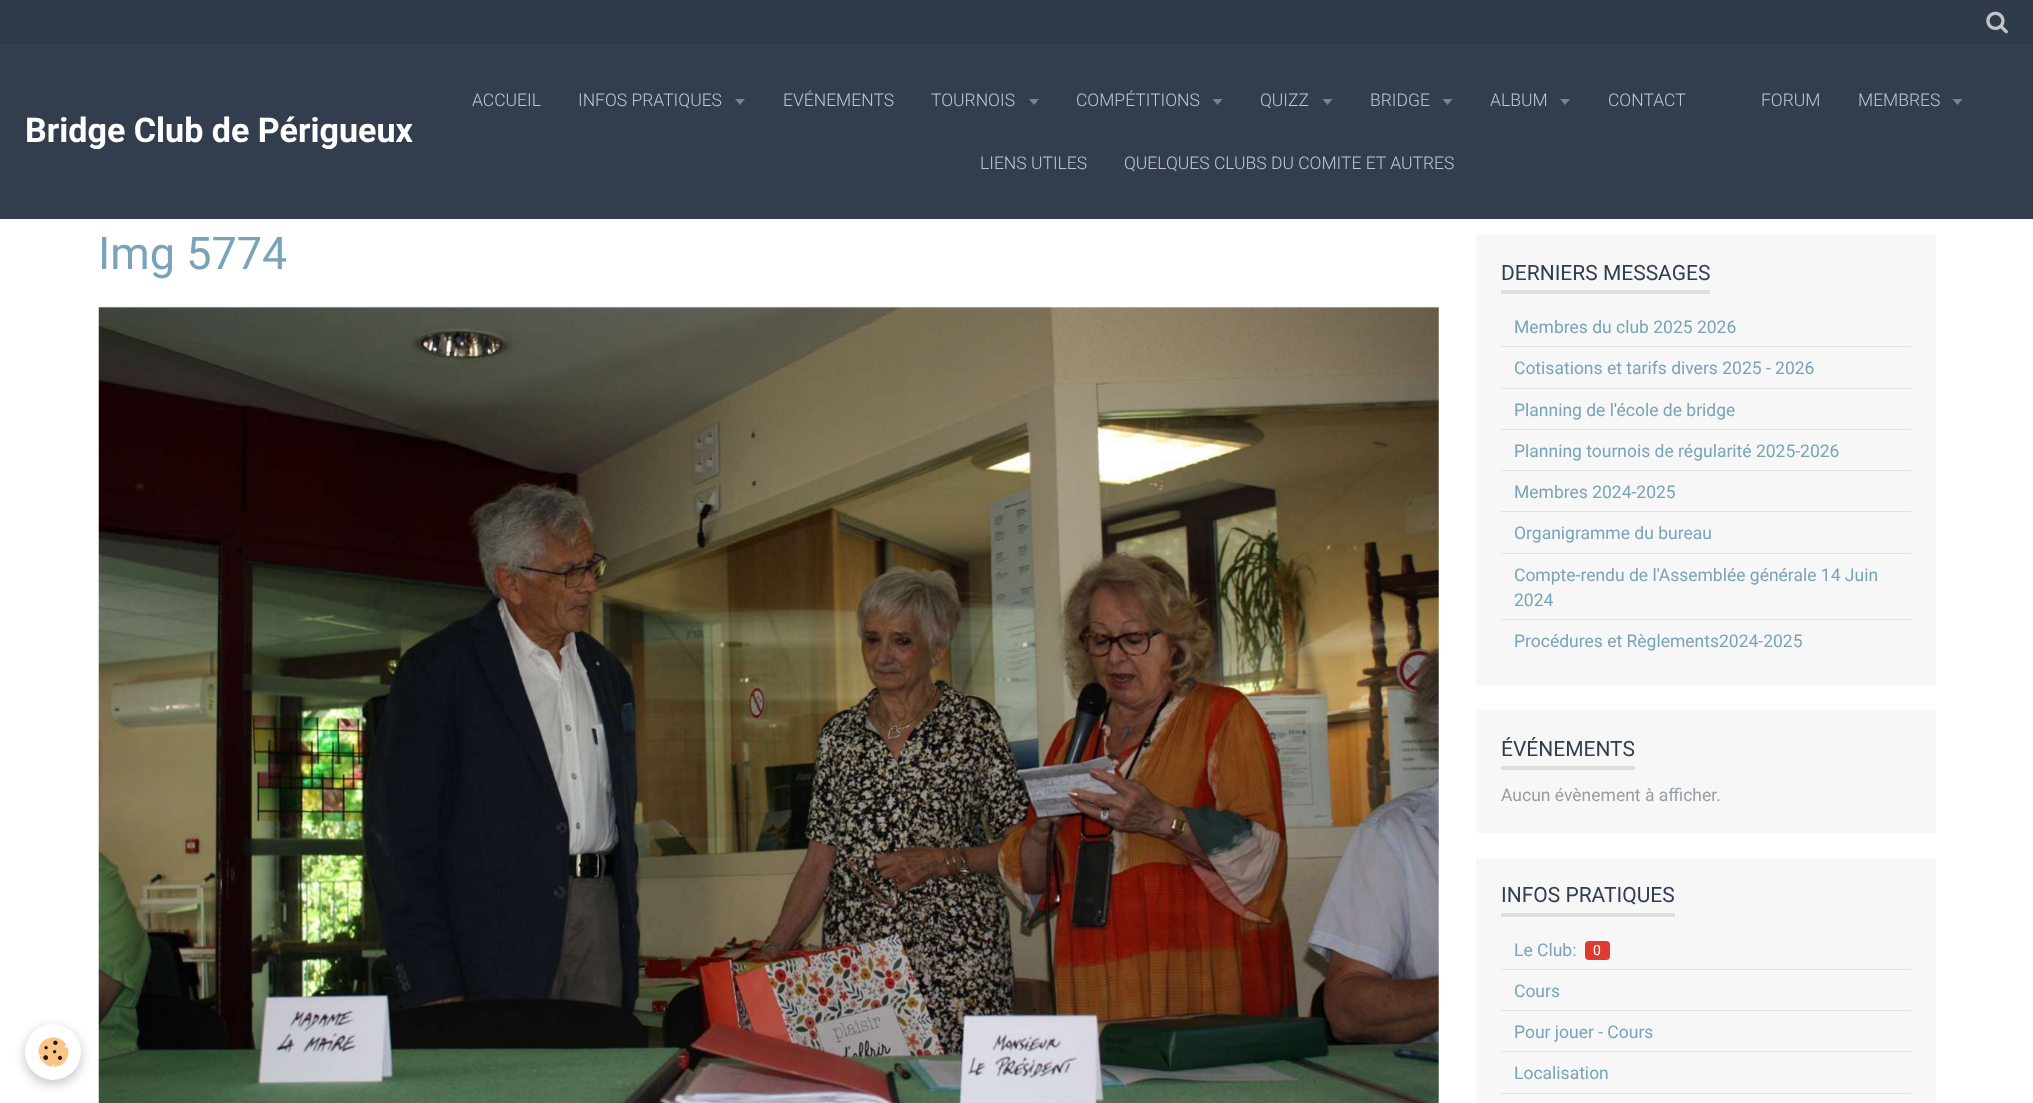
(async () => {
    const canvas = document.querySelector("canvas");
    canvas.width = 2033;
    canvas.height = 1103;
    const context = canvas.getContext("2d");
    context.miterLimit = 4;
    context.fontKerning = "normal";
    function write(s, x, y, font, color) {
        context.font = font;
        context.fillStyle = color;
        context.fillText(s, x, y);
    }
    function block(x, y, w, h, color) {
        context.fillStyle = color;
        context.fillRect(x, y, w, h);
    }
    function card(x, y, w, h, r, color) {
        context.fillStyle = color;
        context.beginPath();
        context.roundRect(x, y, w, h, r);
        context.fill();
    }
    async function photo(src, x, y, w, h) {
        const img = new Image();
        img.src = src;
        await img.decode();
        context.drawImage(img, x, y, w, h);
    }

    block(0, 0, 2033, 1103, "rgb(255, 255, 255)");
    block(0, 44, 2033, 175, "rgb(50, 62, 78)");
    block(0, 0, 2033, 43, "rgb(48, 59, 74)");
    block(0, 43, 2033, 1, "rgb(43, 53, 67)");
    block(1971, 0, 1, 43, "rgb(43, 53, 67)");
    await photo("media/1.png", 1986, 11, 22, 23);
    write("Bridge Club de Périgueux", 25, 142, "bold 34.1px Roboto", "rgb(255, 255, 255)");
    write("ACCUEIL", 472, 106, "300 17.5px Roboto", "rgb(194, 197, 202)");
    write("INFOS PRATIQUES", 578, 106, "300 17.5px Roboto", "rgb(194, 197, 202)");
    context.fillStyle = "rgb(122, 130, 140)";
    context.beginPath();
    context.moveTo(735, 99);
    context.lineTo(745, 99);
    context.lineTo(740, 105);
    context.closePath();
    context.fill();
    write("EVÉNEMENTS", 783, 106, "300 17.5px Roboto", "rgb(194, 197, 202)");
    write("TOURNOIS", 931, 106, "300 17.5px Roboto", "rgb(194, 197, 202)");
    context.fillStyle = "rgb(122, 130, 140)";
    context.beginPath();
    context.moveTo(1029, 99);
    context.lineTo(1039, 99);
    context.lineTo(1034, 105);
    context.closePath();
    context.fill();
    write("COMPÉTITIONS", 1076, 106, "300 17.5px Roboto", "rgb(194, 197, 202)");
    context.fillStyle = "rgb(122, 130, 140)";
    context.beginPath();
    context.moveTo(1212.5, 99);
    context.lineTo(1222.5, 99);
    context.lineTo(1217.5, 105);
    context.closePath();
    context.fill();
    write("QUIZZ", 1260, 106, "300 17.5px Roboto", "rgb(194, 197, 202)");
    context.fillStyle = "rgb(122, 130, 140)";
    context.beginPath();
    context.moveTo(1322.5, 99);
    context.lineTo(1332.5, 99);
    context.lineTo(1327.5, 105);
    context.closePath();
    context.fill();
    write("BRIDGE", 1370, 106, "300 17.5px Roboto", "rgb(194, 197, 202)");
    context.fillStyle = "rgb(122, 130, 140)";
    context.beginPath();
    context.moveTo(1442.5, 99);
    context.lineTo(1452.5, 99);
    context.lineTo(1447.5, 105);
    context.closePath();
    context.fill();
    write("ALBUM", 1490, 106, "300 17.5px Roboto", "rgb(194, 197, 202)");
    context.fillStyle = "rgb(122, 130, 140)";
    context.beginPath();
    context.moveTo(1560, 99);
    context.lineTo(1570, 99);
    context.lineTo(1565, 105);
    context.closePath();
    context.fill();
    write("CONTACT", 1608, 106, "300 17.5px Roboto", "rgb(194, 197, 202)");
    write("FORUM", 1761, 106, "300 17.5px Roboto", "rgb(194, 197, 202)");
    write("MEMBRES", 1858, 106, "300 17.5px Roboto", "rgb(194, 197, 202)");
    context.fillStyle = "rgb(122, 130, 140)";
    context.beginPath();
    context.moveTo(1952.5, 99);
    context.lineTo(1962.5, 99);
    context.lineTo(1957.5, 105);
    context.closePath();
    context.fill();
    write("LIENS UTILES", 980, 169, "300 17.5px Roboto", "rgb(194, 197, 202)");
    write("QUELQUES CLUBS DU COMITE ET AUTRES", 1124, 169, "300 17.5px Roboto", "rgb(194, 197, 202)");
    await photo("media/3.png", 98, 306, 1341, 797);
    context.fillStyle = "rgba(0, 0, 0, 0.24)";
    context.filter = "blur(6px)";
    context.beginPath();
    context.roundRect(25, 1028, 56, 56, 28);
    context.fill();
    context.filter = "none";
    context.fillStyle = "rgb(255, 255, 255)";
    context.beginPath();
    context.arc(53, 1052, 28, 0, Math.PI * 2);
    context.fill();
    await photo("media/2.png", 38, 1037, 31, 30);
    write("Img 5774", 98, 269, "45px Roboto", "rgb(120, 163, 185)");
    block(1476, 235, 460, 450, "rgb(247, 247, 247)");
    block(1501, 290, 209, 4, "rgb(223, 223, 223)");
    write("DERNIERS MESSAGES", 1501, 280, "21px Roboto", "rgb(50, 62, 78)");
    block(1501, 346, 410, 1, "rgb(226, 226, 226)");
    write("Membres du club 2025 2026", 1514, 333, "17.5px Roboto", "rgb(120, 163, 185)");
    block(1501, 388, 410, 1, "rgb(226, 226, 226)");
    write("Cotisations et tarifs divers 2025 - 2026", 1514, 374, "17.5px Roboto", "rgb(120, 163, 185)");
    block(1501, 429, 410, 1, "rgb(226, 226, 226)");
    write("Planning de l'école de bridge", 1514, 416, "17.5px Roboto", "rgb(120, 163, 185)");
    block(1501, 470, 410, 1, "rgb(226, 226, 226)");
    write("Planning tournois de régularité 2025-2026", 1514, 457, "17.5px Roboto", "rgb(120, 163, 185)");
    block(1501, 511, 410, 1, "rgb(226, 226, 226)");
    write("Membres 2024-2025", 1514, 498, "17.5px Roboto", "rgb(120, 163, 185)");
    block(1501, 553, 410, 1, "rgb(226, 226, 226)");
    write("Organigramme du bureau", 1514, 539, "17.5px Roboto", "rgb(120, 163, 185)");
    block(1501, 619, 410, 1, "rgb(226, 226, 226)");
    write("Compte-rendu de l'Assemblée générale 14 Juin", 1514, 581, "17.5px Roboto", "rgb(120, 163, 185)");
    write("2024", 1514, 606, "17.5px Roboto", "rgb(120, 163, 185)");
    write("Procédures et Règlements2024-2025", 1514, 647, "17.5px Roboto", "rgb(120, 163, 185)");
    block(1476, 710, 460, 123, "rgb(247, 247, 247)");
    block(1501, 766, 134, 4, "rgb(223, 223, 223)");
    write("ÉVÉNEMENTS", 1501, 756, "21px Roboto", "rgb(50, 62, 78)");
    write("Aucun évènement à afficher.", 1501, 801, "17.5px Roboto", "rgb(150, 157, 164)");
    block(1476, 858, 460, 245, "rgb(247, 247, 247)");
    block(1501, 913, 174, 4, "rgb(223, 223, 223)");
    write("INFOS PRATIQUES", 1501, 902, "21px Roboto", "rgb(50, 62, 78)");
    block(1501, 969, 410, 1, "rgb(226, 226, 226)");
    write("Le Club:", 1514, 956, "17.5px Roboto", "rgb(120, 163, 185)");
    card(1585, 941, 25, 19, 4, "rgb(222, 58, 49)");
    write("0", 1593, 955, "14px Roboto", "rgb(255, 255, 255)");
    block(1501, 1010, 410, 1, "rgb(226, 226, 226)");
    write("Cours", 1514, 997, "17.5px Roboto", "rgb(120, 163, 185)");
    block(1501, 1051, 410, 1, "rgb(226, 226, 226)");
    write("Pour jouer - Cours", 1514, 1038, "17.5px Roboto", "rgb(120, 163, 185)");
    block(1501, 1093, 410, 1, "rgb(226, 226, 226)");
    write("Localisation", 1514, 1079, "17.5px Roboto", "rgb(120, 163, 185)");
})();
